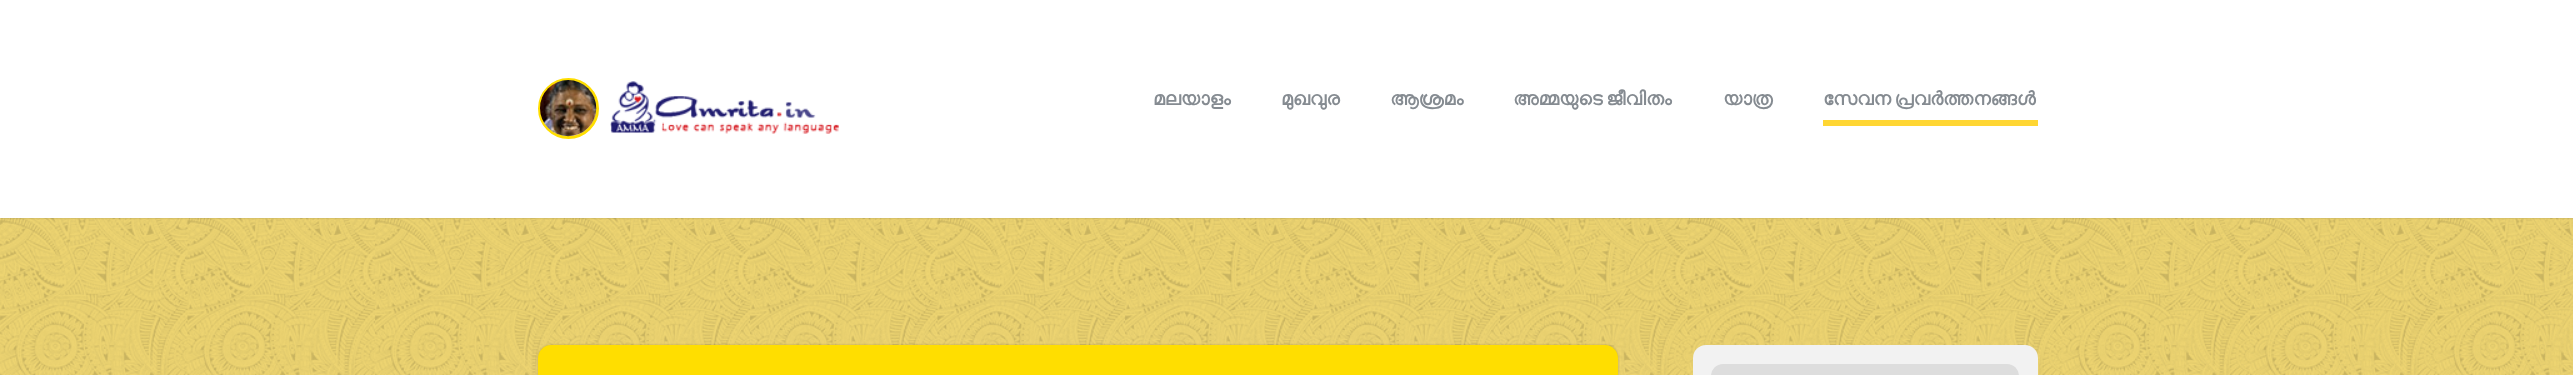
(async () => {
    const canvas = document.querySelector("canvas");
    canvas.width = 2573;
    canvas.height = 375;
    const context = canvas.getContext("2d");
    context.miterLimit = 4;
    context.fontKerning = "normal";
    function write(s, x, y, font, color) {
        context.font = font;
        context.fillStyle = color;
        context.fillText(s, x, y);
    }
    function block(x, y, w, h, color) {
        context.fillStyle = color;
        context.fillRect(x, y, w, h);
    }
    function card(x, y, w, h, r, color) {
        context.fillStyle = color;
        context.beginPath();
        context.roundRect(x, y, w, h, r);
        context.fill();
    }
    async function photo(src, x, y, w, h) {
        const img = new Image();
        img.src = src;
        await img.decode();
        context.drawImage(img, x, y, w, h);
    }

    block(0, 0, 2573, 375, "rgb(237, 212, 113)");
    await photo("media/1.png", 0, 218, 2573, 157);
    context.fillStyle = "rgba(0, 0, 0, 0.2)";
    context.filter = "blur(1px)";
    context.beginPath();
    context.rect(0, 0, 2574, 218);
    context.fill();
    context.filter = "none";
    block(0, 0, 2573, 218, "rgb(255, 255, 255)");
    context.beginPath();
    context.arc(568.5, 108.5, 29, 0, Math.PI * 2);
    context.strokeStyle = "rgb(255, 222, 0)";
    context.lineWidth = 3;
    context.stroke();
    await photo("media/2.png", 540, 80, 57, 57);
    await photo("media/3.png", 610, 81, 229, 53);
    write("മലയാളം", 1153, 105, "bold 18.75px FreeSans", "rgb(133, 139, 145)");
    write("മുഖവുര", 1281, 105, "bold 18.75px FreeSans", "rgb(133, 139, 145)");
    write("ആശ്രമം", 1390, 105, "bold 18.75px FreeSans", "rgb(133, 139, 145)");
    context.wordSpacing = "-1px";
    write("അമ്മയുടെ ജീവിതം", 1513, 105, "bold 18.75px FreeSans", "rgb(133, 139, 145)");
    context.wordSpacing = "0px";
    write("യാത്ര", 1723, 105, "bold 18.75px FreeSans", "rgb(133, 139, 145)");
    block(1823, 120, 215, 6, "rgb(255, 214, 51)");
    context.wordSpacing = "-1px";
    write("സേവന പ്രവര്‍ത്തനങ്ങള്‍", 1823, 105, "bold 18.75px FreeSans", "rgb(133, 139, 145)");
    context.fillStyle = "rgba(0, 0, 0, 0.2)";
    context.filter = "blur(1px)";
    context.beginPath();
    context.roundRect(538, 345, 1080, 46, 13);
    context.fill();
    context.filter = "none";
    context.fillStyle = "rgb(255, 222, 0)";
    context.beginPath();
    context.moveTo(551, 345);
    context.lineTo(1605, 345);
    context.bezierCurveTo(1612, 345, 1618, 351, 1618, 358);
    context.lineTo(1618, 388);
    context.lineTo(538, 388);
    context.lineTo(538, 358);
    context.bezierCurveTo(538, 351, 544, 345, 551, 345);
    context.closePath();
    context.fill();
    card(1693, 345, 345, 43, 13, "rgb(242, 242, 242)");
    card(1711, 364, 308, 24, 13, "rgb(221, 221, 221)");
})();
